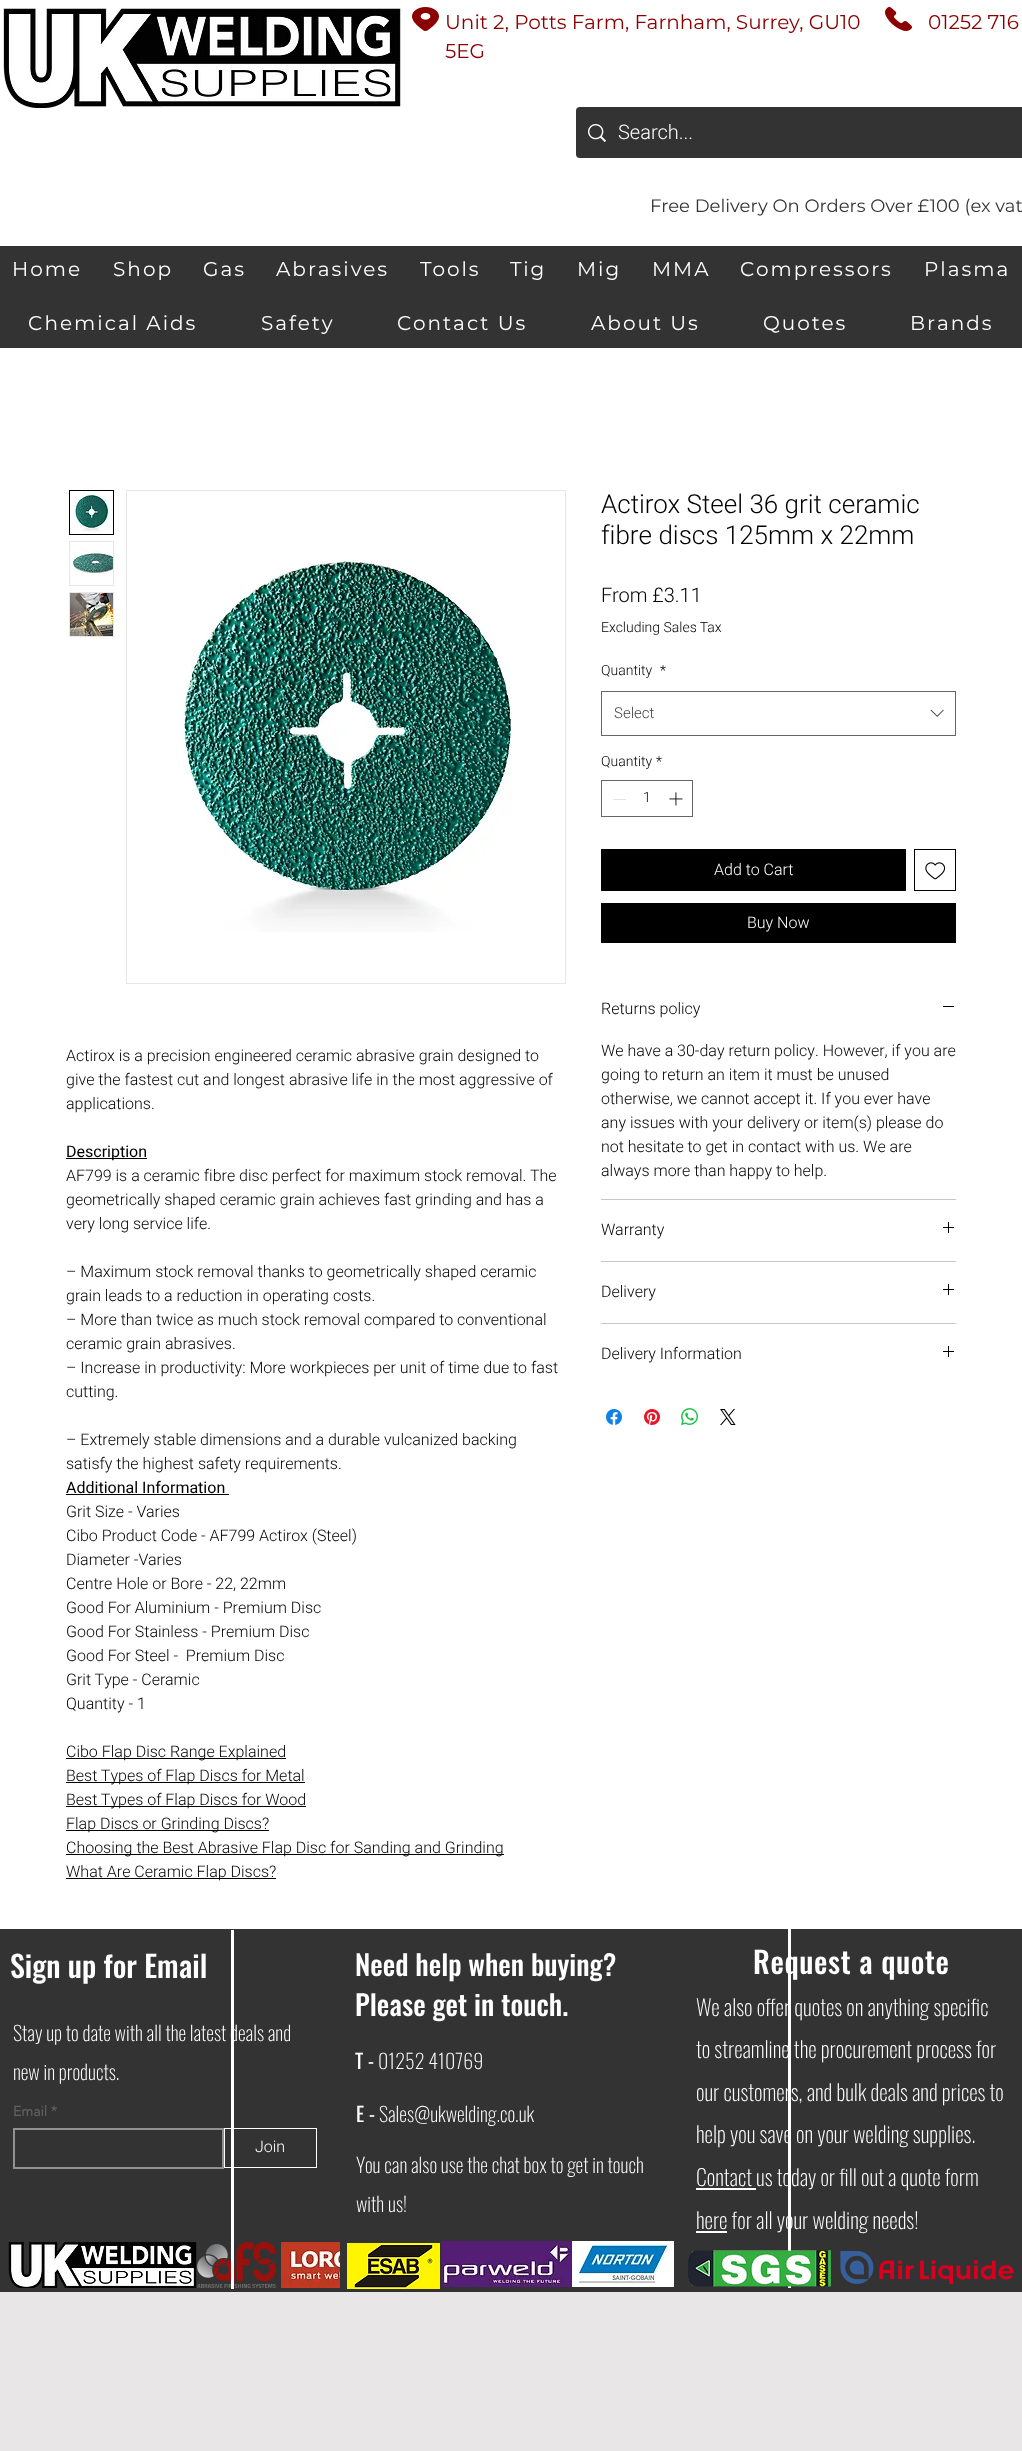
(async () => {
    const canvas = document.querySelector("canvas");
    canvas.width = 1022;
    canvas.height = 2451;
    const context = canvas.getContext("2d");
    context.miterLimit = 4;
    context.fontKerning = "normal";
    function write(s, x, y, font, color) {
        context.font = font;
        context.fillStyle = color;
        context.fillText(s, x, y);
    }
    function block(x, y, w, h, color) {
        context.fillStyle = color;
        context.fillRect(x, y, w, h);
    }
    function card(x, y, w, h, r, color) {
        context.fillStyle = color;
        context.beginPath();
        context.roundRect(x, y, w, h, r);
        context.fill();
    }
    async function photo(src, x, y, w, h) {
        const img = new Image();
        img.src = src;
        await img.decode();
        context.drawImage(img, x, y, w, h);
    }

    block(0, 0, 1022, 2451, "rgb(232, 230, 230)");
    block(0, 0, 1022, 246, "rgb(255, 255, 255)");
    await photo("media/1.png", 3, 8, 398, 100);
    await photo("media/2.png", 412, 7, 27, 24);
    write("Unit 2, Potts Farm, Farnham, Surrey, GU10", 445, 29, "20px Montserrat", "rgb(139, 0, 0)");
    write("5EG", 445, 58, "20px Montserrat", "rgb(139, 0, 0)");
    await photo("media/3.png", 885, 7, 27, 24);
    write("01252 716", 928, 29, "20px Montserrat", "rgb(139, 0, 0)");
    card(576, 107, 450, 51, 4, "rgb(51, 51, 51)");
    await photo("media/4.png", 588, 124, 18, 18);
    write("Search...", 618, 139, "300 20px Heebo", "rgb(255, 255, 255)");
    write("Free Delivery On Orders Over £100 (ex vat", 650, 212, "18px Montserrat", "rgb(51, 51, 51)");
    block(0, 246, 1022, 102, "rgb(51, 51, 51)");
    context.letterSpacing = "2px";
    write("Home", 12, 276, "20px Montserrat", "rgb(255, 255, 255)");
    write("Shop", 113, 276, "20px Montserrat", "rgb(255, 255, 255)");
    write("Gas", 203, 276, "20px Montserrat", "rgb(255, 255, 255)");
    write("Abrasives", 276, 276, "20px Montserrat", "rgb(255, 255, 255)");
    write("Tools", 420, 276, "20px Montserrat", "rgb(255, 255, 255)");
    write("Tig", 510, 276, "20px Montserrat", "rgb(255, 255, 255)");
    write("Mig", 577, 276, "20px Montserrat", "rgb(255, 255, 255)");
    write("MMA", 652, 276, "20px Montserrat", "rgb(255, 255, 255)");
    write("Compressors", 740, 276, "20px Montserrat", "rgb(255, 255, 255)");
    write("Plasma", 924, 276, "20px Montserrat", "rgb(255, 255, 255)");
    write("Chemical Aids", 28, 330, "20px Montserrat", "rgb(255, 255, 255)");
    write("Safety", 261, 330, "20px Montserrat", "rgb(255, 255, 255)");
    write("Contact Us", 397, 330, "20px Montserrat", "rgb(255, 255, 255)");
    write("About Us", 591, 330, "20px Montserrat", "rgb(255, 255, 255)");
    write("Quotes", 763, 330, "20px Montserrat", "rgb(255, 255, 255)");
    write("Brands", 910, 330, "20px Montserrat", "rgb(255, 255, 255)");
    block(0, 348, 1022, 1581, "rgb(255, 255, 255)");
    context.letterSpacing = "0px";
    write("Actirox Steel 36 grit ceramic", 601, 513, "300 26px Heebo", "rgb(0, 0, 0)");
    write("fibre discs 125mm x 22mm", 601, 544, "300 26px Heebo", "rgb(0, 0, 0)");
    write("From £3.11", 601, 602, "300 20px Heebo", "rgb(0, 0, 0)");
    write("Excluding Sales Tax", 601, 632, "300 14px Heebo", "rgb(0, 0, 0)");
    write("Quantity", 601, 675, "300 14px Heebo", "rgb(0, 0, 0)");
    write("*", 660, 675, "300 14px Heebo", "rgb(0, 0, 0)");
    context.strokeStyle = "rgb(102, 102, 102)";
    context.strokeRect(601.5, 691.5, 354, 44);
    write("Select", 614, 718, "300 15px Heebo", "rgb(68, 68, 68)");
    await photo("media/5.png", 930, 709, 14, 8);
    write("Quantity", 601, 766, "300 14px Heebo", "rgb(0, 0, 0)");
    write("*", 656, 766, "300 14px Heebo", "rgb(0, 0, 0)");
    context.strokeRect(601.5, 780.5, 91, 36);
    block(613, 799, 13, 1, "rgb(227, 227, 227)");
    write("1", 643, 802, "300 14px Heebo", "rgb(0, 0, 0)");
    await photo("media/6.png", 669, 792, 14, 14);
    block(601, 849, 305, 42, "rgb(0, 0, 0)");
    write("Add to Cart", 714, 875, "300 16px Heebo", "rgb(255, 255, 255)");
    context.strokeStyle = "rgb(0, 0, 0)";
    context.strokeRect(914.5, 849.5, 41, 41);
    await photo("media/7.png", 925, 862, 21, 18);
    block(601, 903, 355, 40, "rgb(0, 0, 0)");
    write("Buy Now", 747, 928, "300 16px Heebo", "rgb(255, 255, 255)");
    block(601, 1199, 355, 1, "rgb(199, 199, 199)");
    write("Returns policy", 601, 1014, "300 16px Heebo", "rgb(0, 0, 0)");
    block(943, 1006, 11, 1, "rgb(0, 0, 0)");
    write("We have a 30-day return policy. However, if you are", 601, 1056, "300 16px Heebo", "rgb(0, 0, 0)");
    write("going to return an item it must be unused", 601, 1080, "300 16px Heebo", "rgb(0, 0, 0)");
    write("otherwise, we cannot accept it. If you ever have", 601, 1104, "300 16px Heebo", "rgb(0, 0, 0)");
    write("any issues with your delivery or item(s) please do", 601, 1128, "300 16px Heebo", "rgb(0, 0, 0)");
    write("not hesitate to get in contact with us. We are", 601, 1152, "300 16px Heebo", "rgb(0, 0, 0)");
    write("always more than happy to help.", 601, 1176, "300 16px Heebo", "rgb(0, 0, 0)");
    block(601, 1261, 355, 1, "rgb(199, 199, 199)");
    write("Warranty", 601, 1235, "300 16px Heebo", "rgb(0, 0, 0)");
    await photo("media/8.png", 943, 1222, 11, 11);
    block(601, 1323, 355, 1, "rgb(199, 199, 199)");
    write("Delivery", 601, 1297, "300 16px Heebo", "rgb(0, 0, 0)");
    await photo("media/8.png", 943, 1284, 11, 11);
    write("Delivery Information", 601, 1359, "300 16px Heebo", "rgb(0, 0, 0)");
    await photo("media/8.png", 943, 1346, 11, 11);
    await photo("media/9.png", 606, 1409, 16, 16);
    await photo("media/10.png", 644, 1409, 16, 16);
    await photo("media/11.png", 681, 1408, 17, 17);
    await photo("media/12.png", 720, 1409, 16, 16);
    context.strokeRect(69.5, 490.5, 44, 44);
    await photo("media/13.png", 70, 491, 43, 43);
    block(69, 541, 45, 45, "rgb(232, 230, 230)");
    await photo("media/14.png", 70, 542, 43, 43);
    block(69, 592, 45, 45, "rgb(232, 230, 230)");
    await photo("media/15.png", 70, 593, 43, 43);
    context.strokeStyle = "rgb(232, 230, 230)";
    context.strokeRect(126.5, 490.5, 439, 493);
    await photo("media/16.png", 183, 560, 329, 372);
    write("Actirox is a precision engineered ceramic abrasive grain designed to", 66, 1061, "300 16px Heebo", "rgb(0, 0, 0)");
    write("give the fastest cut and longest abrasive life in the most aggressive of", 66, 1085, "300 16px Heebo", "rgb(0, 0, 0)");
    write("applications.", 66, 1109, "300 16px Heebo", "rgb(0, 0, 0)");
    block(66, 1158, 81, 1, "rgb(0, 0, 0)");
    write("Description", 66, 1157, "16px Heebo", "rgb(0, 0, 0)");
    write("AF799 is a ceramic fibre disc perfect for maximum stock removal. The", 66, 1181, "300 16px Heebo", "rgb(0, 0, 0)");
    write("geometrically shaped ceramic grain achieves fast grinding and has a", 66, 1205, "300 16px Heebo", "rgb(0, 0, 0)");
    write("very long service life.", 66, 1229, "300 16px Heebo", "rgb(0, 0, 0)");
    write("– Maximum stock removal thanks to geometrically shaped ceramic", 66, 1277, "300 16px Heebo", "rgb(0, 0, 0)");
    write("grain leads to a reduction in operating costs.", 66, 1301, "300 16px Heebo", "rgb(0, 0, 0)");
    write("– More than twice as much stock removal compared to conventional", 66, 1325, "300 16px Heebo", "rgb(0, 0, 0)");
    write("ceramic grain abrasives.", 66, 1349, "300 16px Heebo", "rgb(0, 0, 0)");
    write("– Increase in productivity: More workpieces per unit of time due to fast", 66, 1373, "300 16px Heebo", "rgb(0, 0, 0)");
    write("cutting.", 66, 1397, "300 16px Heebo", "rgb(0, 0, 0)");
    write("– Extremely stable dimensions and a durable vulcanized backing", 66, 1445, "300 16px Heebo", "rgb(0, 0, 0)");
    write("satisfy the highest safety requirements.", 66, 1469, "300 16px Heebo", "rgb(0, 0, 0)");
    write("Additional Information", 66, 1493, "16px Heebo", "rgb(0, 0, 0)");
    block(66, 1494, 163, 1, "rgb(0, 0, 0)");
    write("Grit Size - Varies", 66, 1517, "300 16px Heebo", "rgb(0, 0, 0)");
    write("Cibo Product Code - AF799 Actirox (Steel)", 66, 1541, "300 16px Heebo", "rgb(0, 0, 0)");
    write("Diameter -Varies", 66, 1565, "300 16px Heebo", "rgb(0, 0, 0)");
    write("Centre Hole or Bore - 22, 22mm", 66, 1589, "300 16px Heebo", "rgb(0, 0, 0)");
    write("Good For Aluminium - Premium Disc", 66, 1613, "300 16px Heebo", "rgb(0, 0, 0)");
    write("Good For Stainless - Premium Disc", 66, 1637, "300 16px Heebo", "rgb(0, 0, 0)");
    write("Good For Steel -  Premium Disc", 66, 1661, "300 16px Heebo", "rgb(0, 0, 0)");
    write("Grit Type - Ceramic", 66, 1685, "300 16px Heebo", "rgb(0, 0, 0)");
    write("Quantity - 1", 66, 1709, "300 16px Heebo", "rgb(0, 0, 0)");
    block(66, 1758, 220, 1, "rgb(0, 0, 0)");
    write("Cibo Flap Disc Range Explained", 66, 1757, "300 16px Heebo", "rgb(0, 0, 0)");
    block(66, 1782, 239, 1, "rgb(0, 0, 0)");
    write("Best Types of Flap Discs for Metal", 66, 1781, "300 16px Heebo", "rgb(0, 0, 0)");
    block(66, 1806, 240, 1, "rgb(0, 0, 0)");
    write("Best Types of Flap Discs for Wood", 66, 1805, "300 16px Heebo", "rgb(0, 0, 0)");
    block(66, 1830, 203, 1, "rgb(0, 0, 0)");
    write("Flap Discs or Grinding Discs?", 66, 1829, "300 16px Heebo", "rgb(0, 0, 0)");
    block(66, 1854, 438, 1, "rgb(0, 0, 0)");
    write("Choosing the Best Abrasive Flap Disc for Sanding and Grinding", 66, 1853, "300 16px Heebo", "rgb(0, 0, 0)");
    block(66, 1878, 210, 1, "rgb(0, 0, 0)");
    write("What Are Ceramic Flap Discs?", 66, 1877, "300 16px Heebo", "rgb(0, 0, 0)");
    block(0, 1929, 1022, 363, "rgb(51, 51, 51)");
    write("Sign up for Email", 10, 1978, "500 30px Oswald", "rgb(255, 255, 255)");
    write("Stay up to date with all the latest deals and", 13, 2041, "200 20px Oswald", "rgb(255, 255, 255)");
    write("new in products.", 13, 2080, "200 20px Oswald", "rgb(255, 255, 255)");
    write("Email *", 13, 2116, "bold 14px 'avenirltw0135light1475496'", "rgb(97, 97, 95)");
    context.strokeStyle = "rgb(145, 145, 145)";
    context.lineWidth = 2;
    context.strokeRect(14, 2129, 209, 39);
    context.strokeStyle = "rgb(255, 255, 255)";
    context.lineWidth = 1;
    context.strokeRect(224.5, 2128.5, 92, 39);
    write("Join", 255, 2152, "300 16px Heebo", "rgb(255, 255, 255)");
    await photo("media/17.png", 8, 2242, 189, 46);
    await photo("media/18.png", 197, 2242, 79, 46);
    await photo("media/19.png", 281, 2242, 59, 46);
    block(231, 1930, 3, 359, "rgb(255, 255, 255)");
    write("Need help when buying?", 355, 1976, "500 28px Oswald", "rgb(255, 255, 255)");
    write("Please get in touch.", 355, 2016, "500 28px Oswald", "rgb(255, 255, 255)");
    block(788, 1929, 3, 359, "rgb(255, 255, 255)");
    write("T -", 355, 2069, "20px Oswald", "rgb(255, 255, 255)");
    write("01252 410769", 378, 2069, "200 20px Oswald", "rgb(255, 255, 255)");
    write("E -", 356, 2122, "20px Oswald", "rgb(255, 255, 255)");
    write("Sales@ukwelding.co.uk", 379, 2122, "200 20px Oswald", "rgb(255, 255, 255)");
    write("You can also use the chat box to get in touch", 356, 2173, "200 20px Oswald", "rgb(255, 255, 255)");
    write("with us!", 356, 2212, "200 20px Oswald", "rgb(255, 255, 255)");
    await photo("media/20.png", 347, 2243, 93, 46);
    await photo("media/21.png", 442, 2241, 129, 46);
    await photo("media/22.png", 572, 2241, 102, 46);
    context.letterSpacing = "0.6px";
    write("Request a quote", 753, 1974, "500 30px Oswald", "rgb(255, 255, 255)");
    context.letterSpacing = "0px";
    write("We also offer quotes on anything specific", 696, 2016, "200 22px Oswald", "rgb(255, 255, 255)");
    write("to streamline the procurement process for", 696, 2058, "200 22px Oswald", "rgb(255, 255, 255)");
    write("our customers, and bulk deals and prices to", 696, 2101, "200 22px Oswald", "rgb(255, 255, 255)");
    write("help you save on your welding supplies.", 696, 2143, "200 22px Oswald", "rgb(255, 255, 255)");
    block(696, 2188, 60, 2, "rgb(255, 255, 255)");
    write("Contact us today or fill out a quote form", 696, 2186, "200 22px Oswald", "rgb(255, 255, 255)");
    block(696, 2231, 31, 2, "rgb(255, 255, 255)");
    write("here for all your welding needs!", 696, 2229, "200 22px Oswald", "rgb(255, 255, 255)");
    await photo("media/23.png", 688, 2250, 143, 37);
    await photo("media/24.png", 840, 2251, 174, 33);
})();
